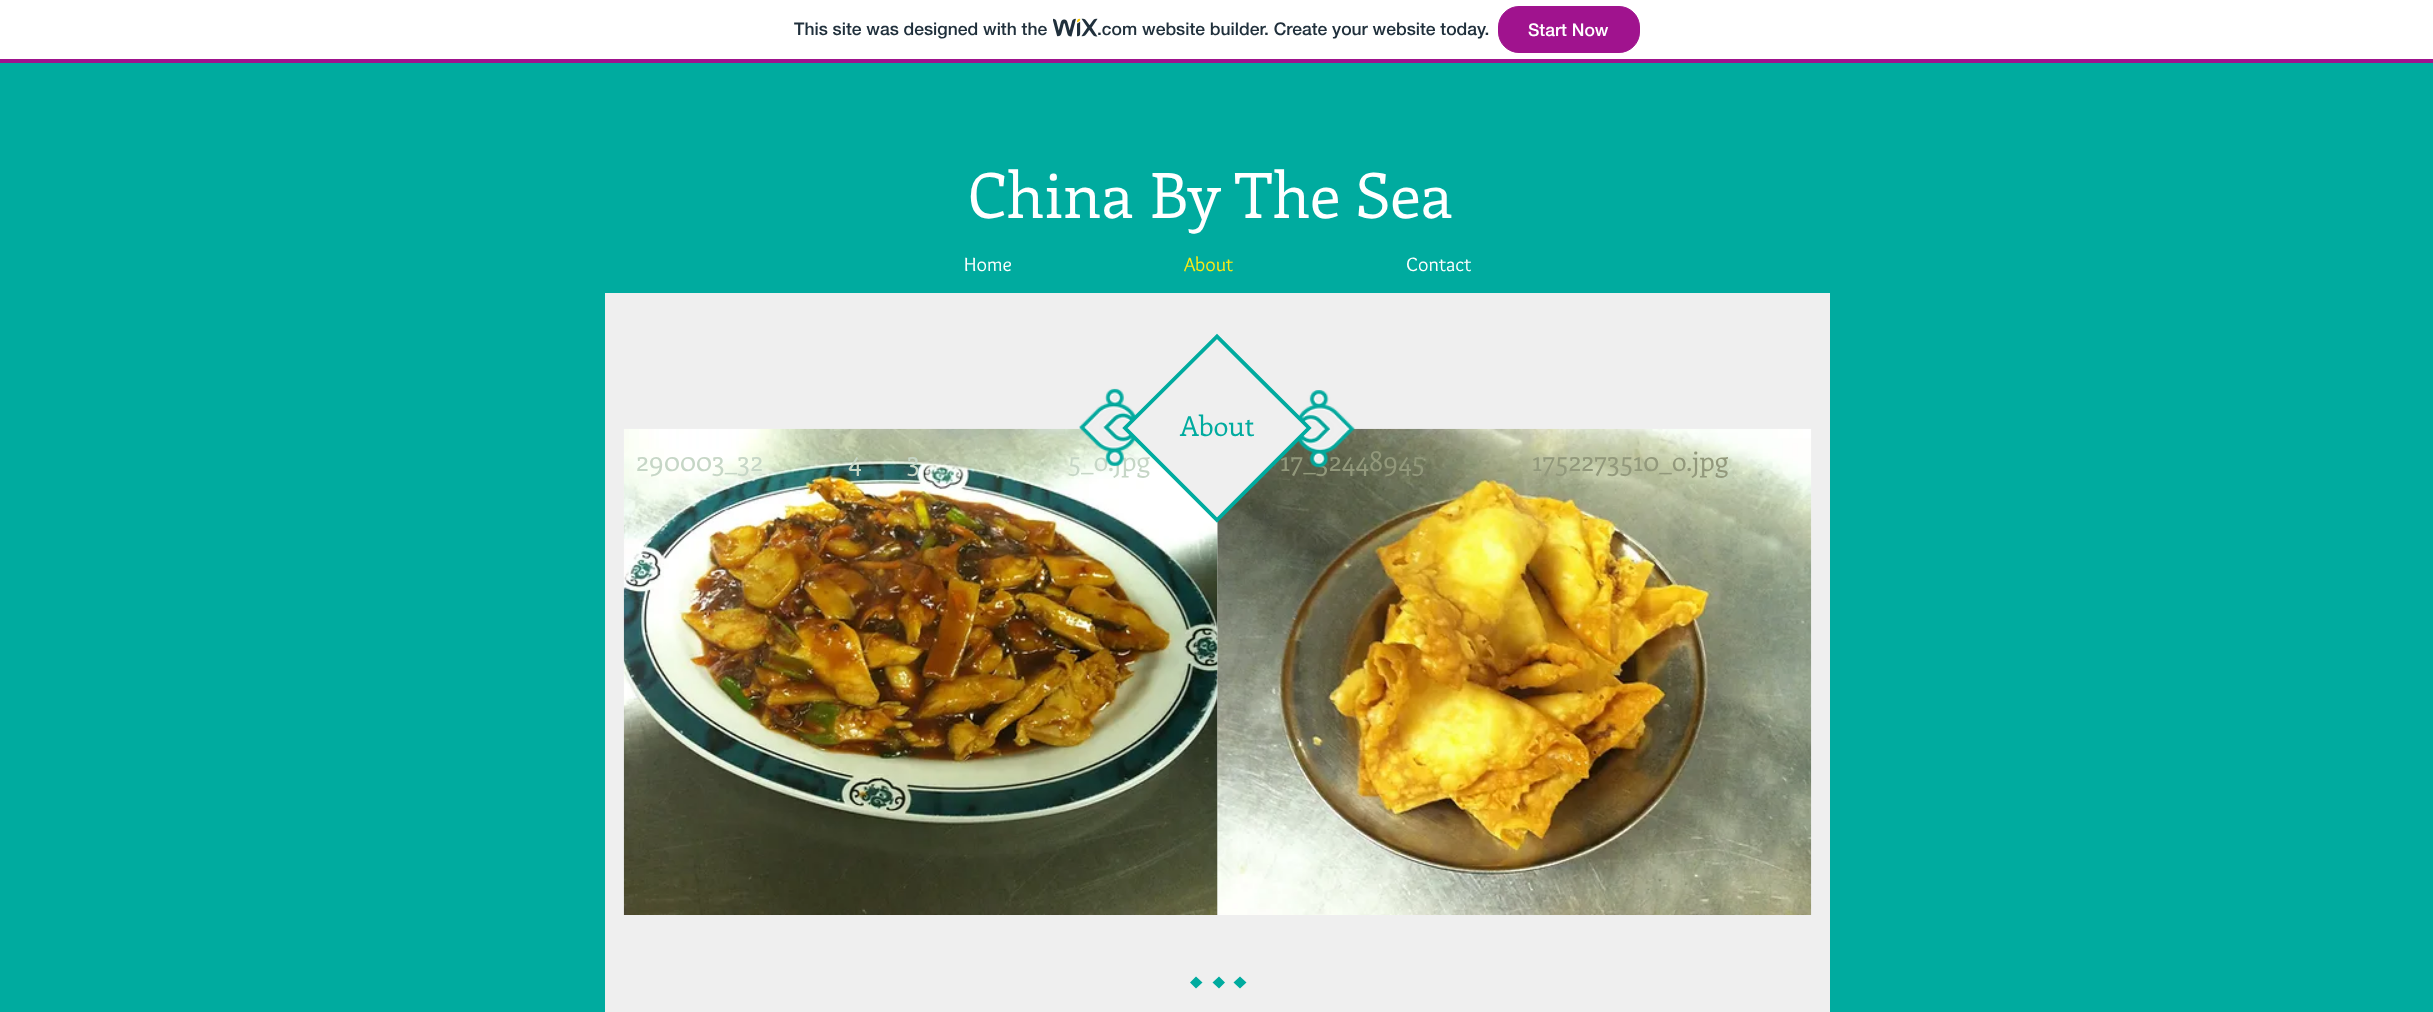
<svg xmlns="http://www.w3.org/2000/svg" width="2433" height="1012" viewBox="0 0 2433 1012">
  <style>
    .t1 { font: 500 17.5px 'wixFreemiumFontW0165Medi'; fill: #20303c; }
    .t2 { font: 500 17.5px 'wixFreemiumFontW0165Medi'; fill: #fff; }
    .t3 { font: 62.5px Enriqueta; fill: #fff; }
    .t4 { font: 20px Overlock; fill: #fff; }
    .t5 { font: 20px Overlock; fill: #ffea13; }
    .t6 { font: 27.5px Enriqueta; fill: #c6d6c6; }
    .t7 { font: 27.5px Enriqueta; fill: #92987b; }
    .t8 { font: 27.5px Enriqueta; fill: #00ab9f; }
  </style>
  <rect width="100%" height="100%" fill="#fff"/>
  <rect x="0" y="59" width="2433" height="4" fill="#a0138e"/>
  <text x="794" y="35" class="t1">This site was designed with the</text>
  <image x="1053" y="18" width="45" height="19" href="images/1.png"/>
  <text x="1097" y="35" class="t1">.com website builder. Create your website today.</text>
  <rect x="1498.5" y="6.5" width="141" height="46" rx="20.5" fill="#a0138e" stroke="#a0138e"/>
  <text x="1528" y="36" class="t2">Start Now</text>
  <rect x="0" y="63" width="2433" height="949" fill="#00ab9f"/>
  <text x="968" y="218" class="t3">China By The Sea</text>
  <text x="964" y="271" class="t4">Home</text>
  <text x="1184" y="271" class="t5">About</text>
  <text x="1406" y="271" class="t4">Contact</text>
  <rect x="605" y="293" width="1225" height="719" fill="#efefef"/>
  <image x="623" y="428" width="595" height="487" href="images/4.png"/>
  <text x="1068" y="471" class="t6">5_o.jpg</text>
  <image x="1079" y="388" width="57" height="79" href="images/2.png"/>
  <image x="1217" y="428" width="595" height="487" href="images/5.png"/>
  <text x="1280" y="471" class="t7">17_32448945</text>
  <image x="1297" y="390" width="58" height="78" href="images/3.png"/>
  <path d="M1309 428L1217 520L1125 428L1217 336Z" fill="#efefef"/>
  <path d="M1309 428L1217 520L1125 428L1217 336.5Z" fill="none" stroke="#00ab9f" stroke-width="3.8"/>
  <text x="1180" y="436" class="t8">About</text>
  <text x="636" y="471" class="t6">290003_32</text>
  <text x="848" y="471" class="t6">4</text>
  <text x="907" y="471" class="t6">3</text>
  <text x="1532" y="471" class="t7">1752273510_o.jpg</text>
  <path d="M1202.5 982.5L1196 988.5L1190 982.5L1196 976.5ZM1225 982.5L1219 988.5L1212.5 982.5L1219 976.5ZM1246.5 982.5L1240 988.5L1233.5 982.5L1240 976.5Z" fill="#00ab9f"/>
</svg>
